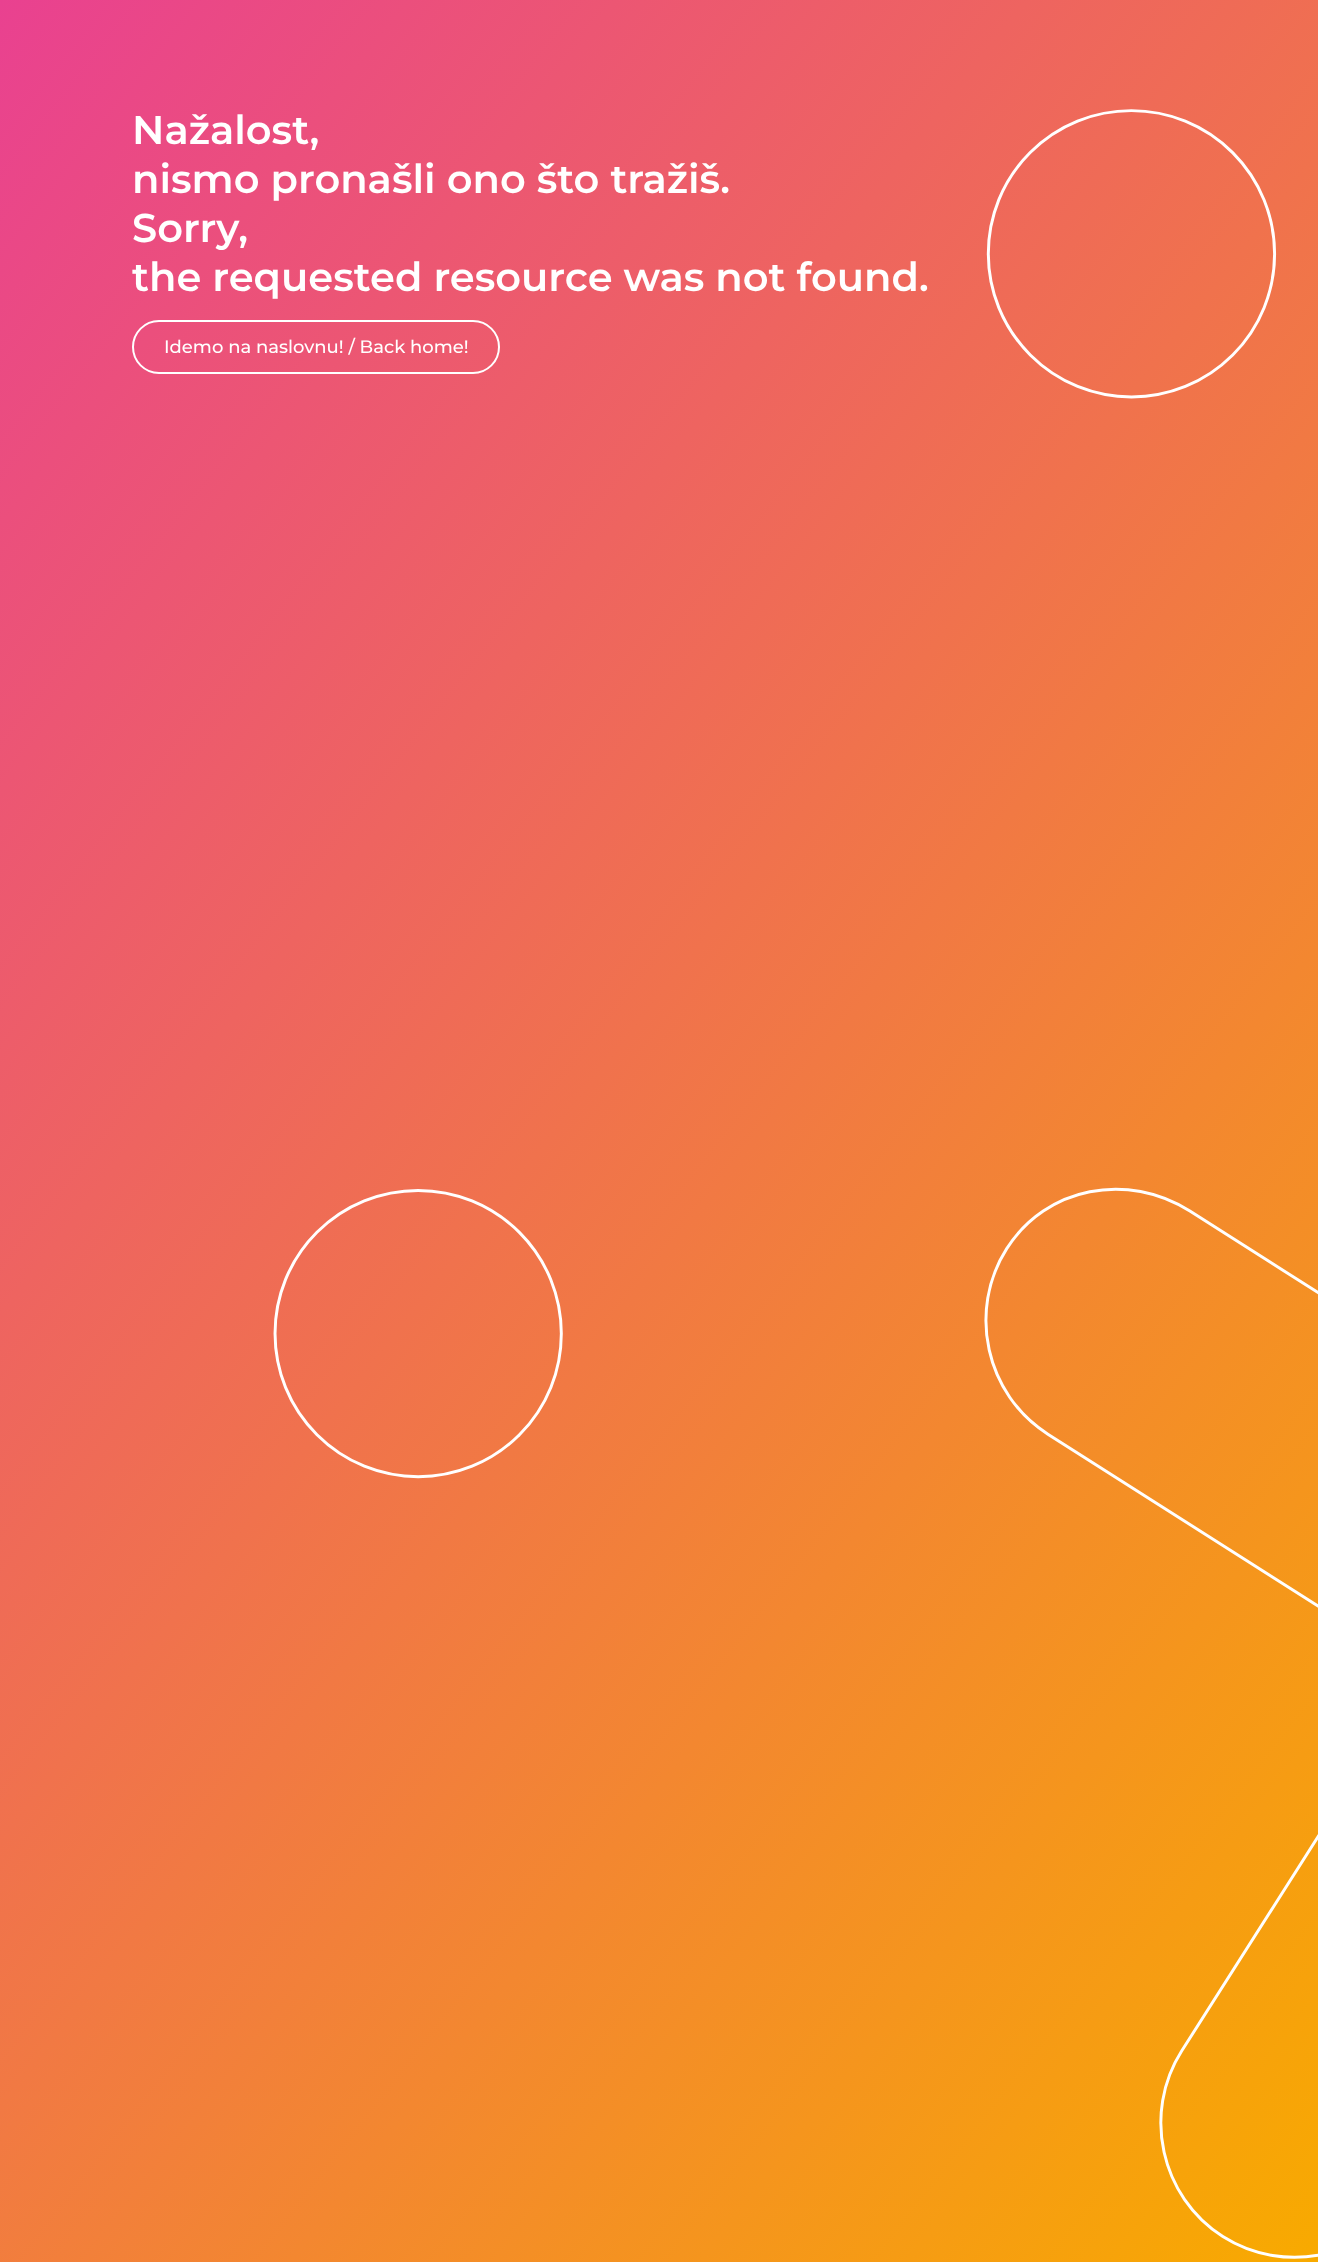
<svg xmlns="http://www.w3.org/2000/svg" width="1318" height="2262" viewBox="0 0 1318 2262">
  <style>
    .t1 { font: 600 40px Montserrat; fill: #fff; }
    .t2 { font: 500 18px Montserrat; fill: #fff; }
  </style>
  <defs>
    <linearGradient id="g1" gradientUnits="userSpaceOnUse" x1="-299" y1="383" x2="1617" y2="1879"><stop offset="0" stop-color="#e94190"/><stop offset="1" stop-color="#f8aa00"/></linearGradient>
  </defs>
  <rect width="100%" height="100%" fill="#fff"/>
  <rect x="0" y="0" width="1318" height="2262" fill="url(#g1)"/>
  <image x="273" y="109" width="1045" height="2150" href="images/1.png"/>
  <text x="132" y="144" class="t1">Nažalost,</text>
  <text x="132" y="193" class="t1">nismo pronašli ono što tražiš.</text>
  <text x="132" y="242" class="t1">Sorry,</text>
  <text x="132" y="291" class="t1">the requested resource was not found.</text>
  <rect x="133" y="321" width="366" height="52" rx="26" fill="none" stroke="#fff" stroke-width="2"/>
  <text x="164" y="353" class="t2">Idemo na naslovnu! / Back home!</text>
</svg>
